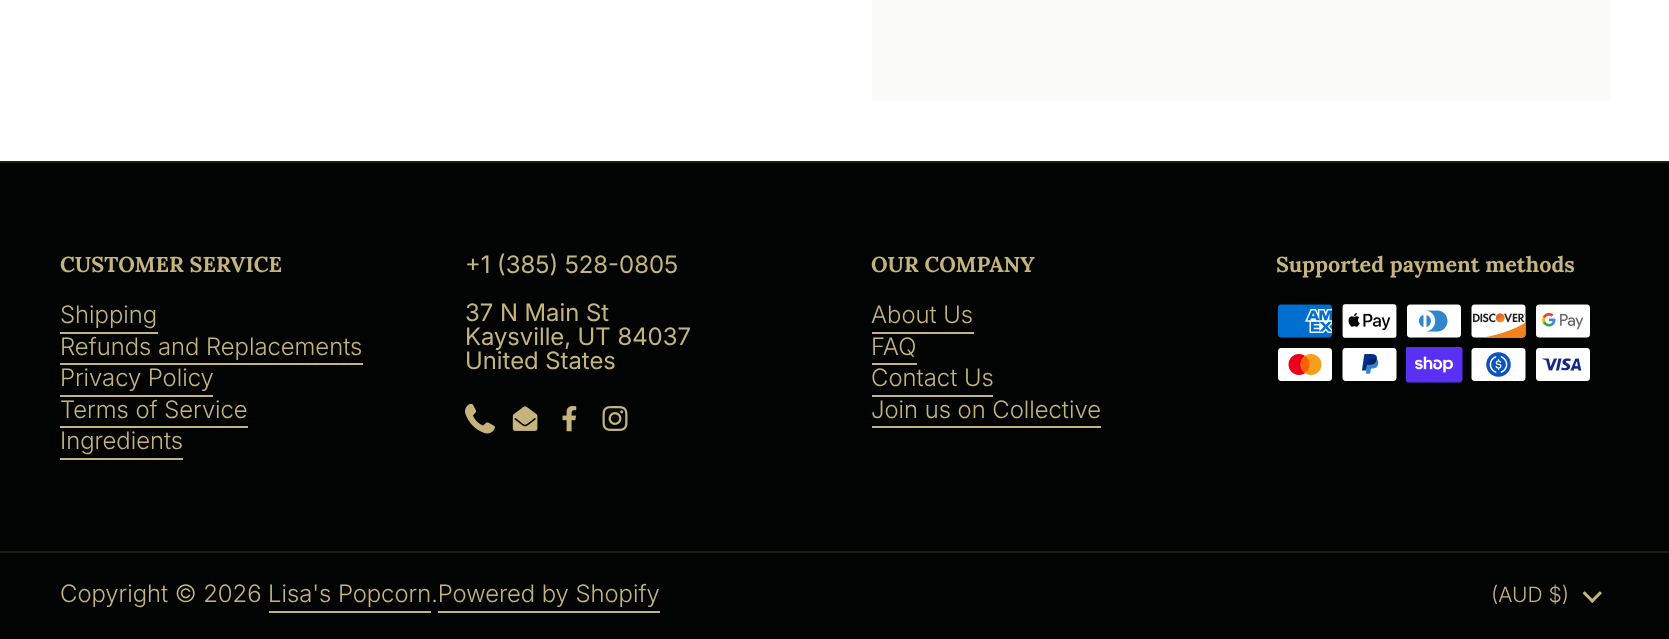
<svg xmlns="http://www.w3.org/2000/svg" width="1669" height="639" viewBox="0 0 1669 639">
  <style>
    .t1 { font: bold 21.6px Lora; fill: #c5b47c; }
    .t2 { font: 300 24px Inter; fill: #c5b47c; }
    .t3 { font: 24px Inter; fill: #c5b47c; }
    .t4 { font: 300 21px 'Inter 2'; fill: #c5b47c; }
  </style>
  <rect width="100%" height="100%" fill="#fff"/>
  <rect x="872" y="0" width="738" height="101" fill="#fafaf9"/>
  <rect x="0" y="163" width="1669" height="476" fill="#020303"/>
  <rect x="0" y="161" width="1669" height="2" fill="#1f1e15"/>
  <text x="60" y="272" class="t1">CUSTOMER SERVICE</text>
  <text x="60" y="323" class="t2">Shipping</text>
  <rect x="60" y="332" width="98" height="2" fill="#c5b47c"/>
  <text x="60" y="355" class="t2">Refunds and Replacements</text>
  <rect x="60" y="363" width="303" height="2" fill="#c5b47c"/>
  <text x="60" y="386" class="t2">Privacy Policy</text>
  <rect x="60" y="395" width="153" height="2" fill="#c5b47c"/>
  <text x="60" y="418" class="t2">Terms of Service</text>
  <rect x="60" y="426" width="188" height="2" fill="#c5b47c"/>
  <text x="60" y="449" class="t2">Ingredients</text>
  <rect x="60" y="458" width="123" height="2" fill="#c5b47c"/>
  <text x="465" y="273" class="t3">+1 (385) 528-0805</text>
  <text x="465" y="321" class="t3">37 N Main St</text>
  <text x="465" y="345" class="t3">Kaysville, UT 84037</text>
  <text x="465" y="369" class="t3">United States</text>
  <image x="465" y="404" width="30" height="30" href="images/1.png"/>
  <image x="512" y="406" width="26" height="25" href="images/2.png"/>
  <image x="562" y="406" width="15" height="26" href="images/3.png"/>
  <image x="602" y="406" width="26" height="25" href="images/4.png"/>
  <text x="871" y="272" class="t1">OUR COMPANY</text>
  <text x="871" y="323" class="t2">About Us</text>
  <rect x="872" y="332" width="102" height="2" fill="#c5b47c"/>
  <text x="871" y="355" class="t2">FAQ</text>
  <rect x="872" y="363" width="45" height="2" fill="#c5b47c"/>
  <text x="871" y="386" class="t2">Contact Us</text>
  <rect x="872" y="395" width="121" height="2" fill="#c5b47c"/>
  <text x="871" y="418" class="t2">Join us on Collective</text>
  <rect x="872" y="426" width="229" height="2" fill="#c5b47c"/>
  <text x="1276" y="272" class="t1">Supported payment methods</text>
  <image x="1278" y="304" width="54" height="34" href="images/5.png"/>
  <image x="1342" y="304" width="55" height="34" href="images/6.png"/>
  <image x="1407" y="304" width="54" height="34" href="images/7.png"/>
  <image x="1471" y="304" width="55" height="34" href="images/8.png"/>
  <image x="1536" y="304" width="54" height="34" href="images/9.png"/>
  <image x="1278" y="348" width="54" height="33" href="images/10.png"/>
  <image x="1342" y="348" width="55" height="33" href="images/11.png"/>
  <image x="1406" y="347" width="57" height="36" href="images/12.png"/>
  <image x="1471" y="348" width="55" height="33" href="images/13.png"/>
  <image x="1536" y="348" width="54" height="33" href="images/14.png"/>
  <rect x="0" y="551" width="1669" height="2" fill="#1f1e15"/>
  <text x="60" y="602" class="t2">Copyright © 2026 Lisa's Popcorn.Powered by Shopify</text>
  <rect x="269" y="611" width="162" height="2" fill="#c5b47c"/>
  <rect x="438" y="611" width="222" height="2" fill="#c5b47c"/>
  <text x="1491" y="602" class="t4">(AUD $)</text>
  <image x="1583" y="591" width="19" height="12" href="images/15.png"/>
</svg>
